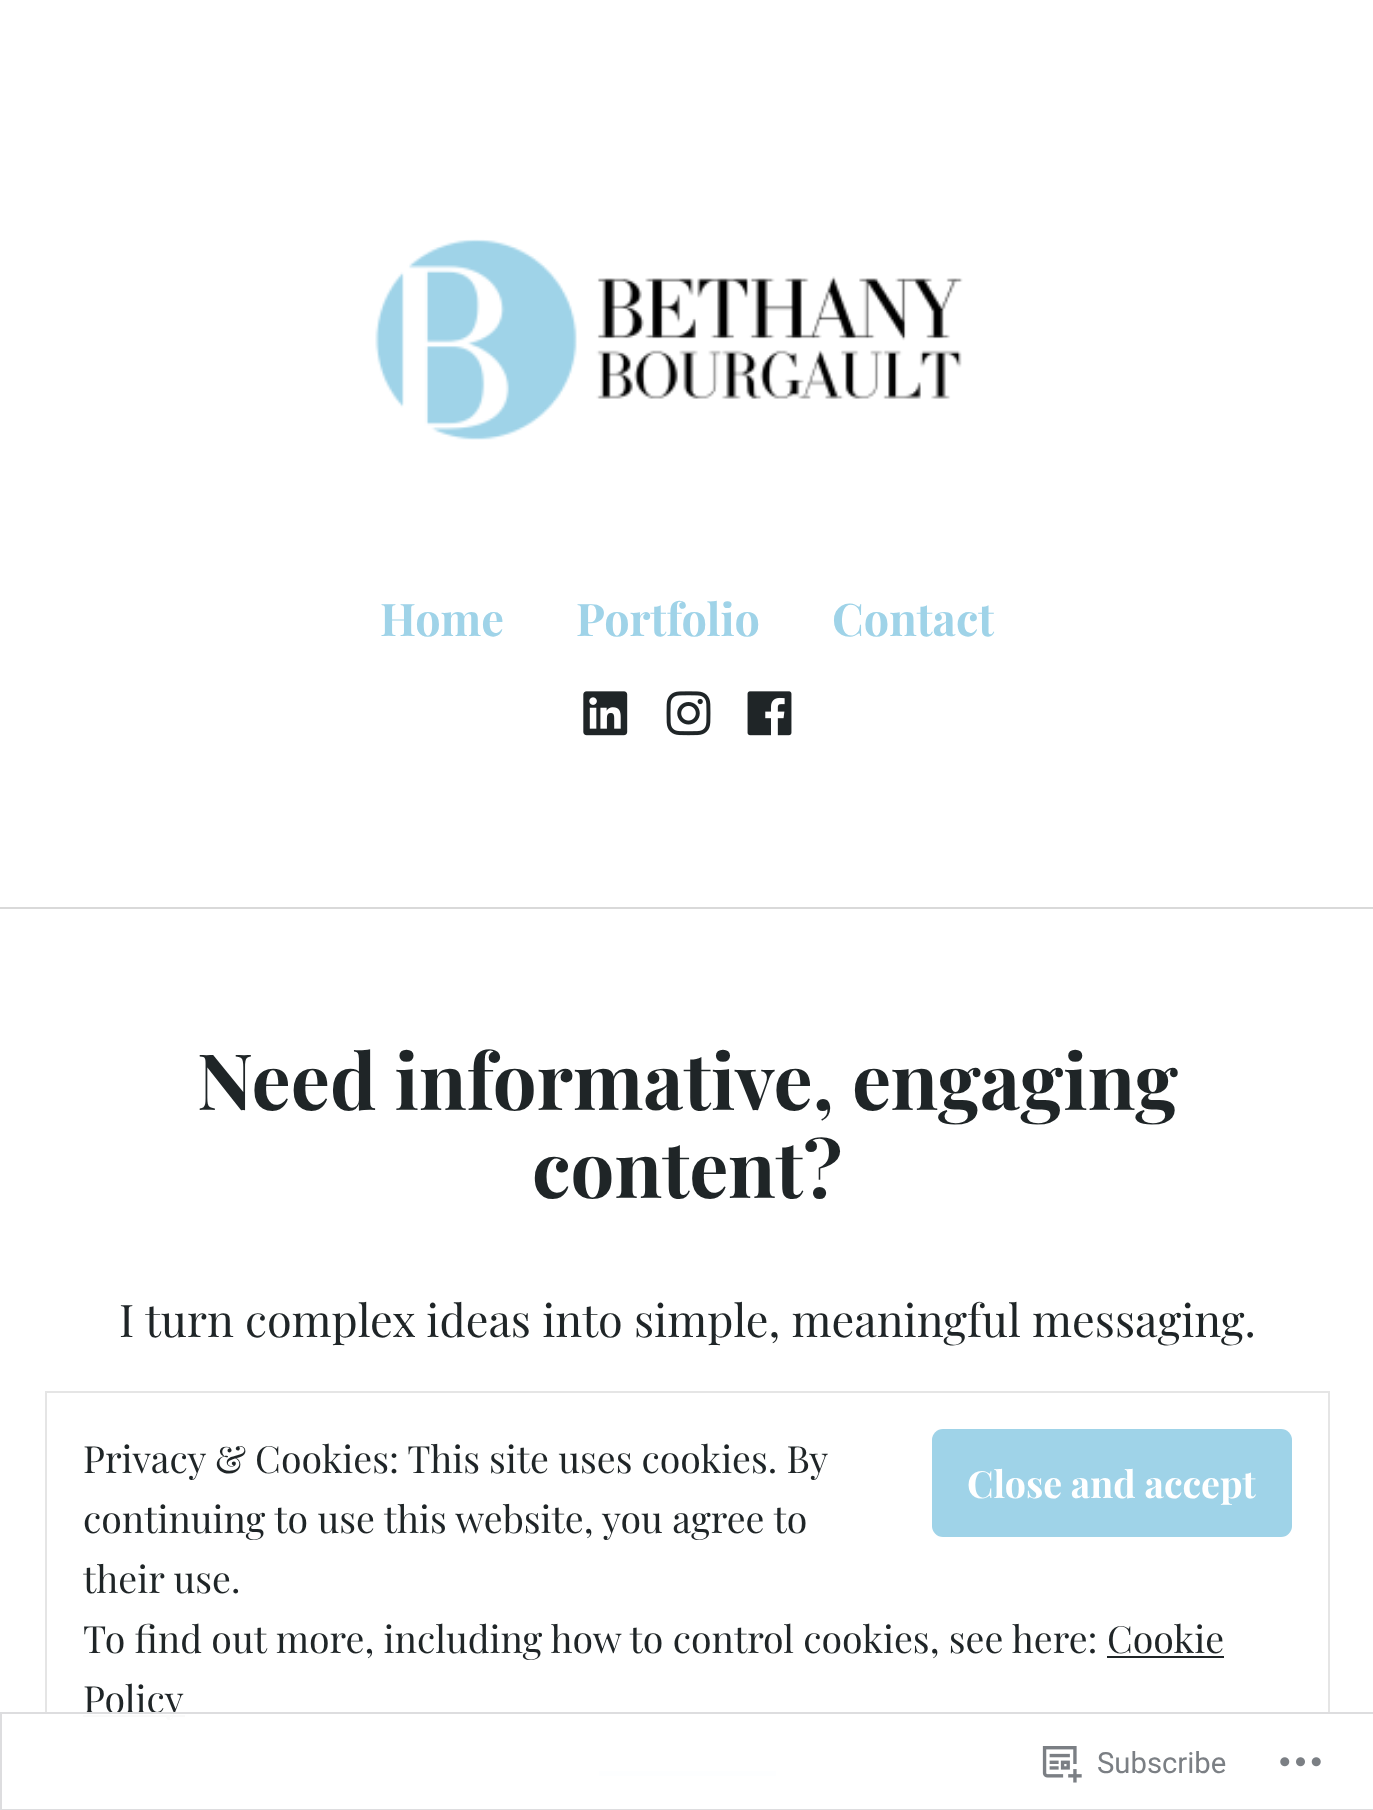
<svg xmlns="http://www.w3.org/2000/svg" width="1373" height="1810" viewBox="0 0 1373 1810">
  <style>
    .t1 { font: bold 45px Playfair Display; fill: #9fd3e8; }
    .t2 { font: bold 77.75px Playfair Display; fill: #1f2527; }
    .t3 { font: 45px Playfair Display; fill: #1f2527; }
    .t4 { font: 37.5px Playfair Display; fill: #1f2527; }
    .t5 { font: bold 37.5px Playfair Display; fill: #fff; }
    .t6 { font: 29.25px Roboto; fill: #7b7f84; }
  </style>
  <rect width="100%" height="100%" fill="#fff"/>
  <image x="375" y="239" width="588" height="201" href="images/1.png"/>
  <text x="380" y="636" class="t1">Home</text>
  <text x="576" y="636" class="t1">Portfolio</text>
  <text x="832" y="636" class="t1">Contact</text>
  <image x="583" y="691" width="45" height="45" href="images/2.png"/>
  <image x="666" y="691" width="45" height="45" href="images/3.png"/>
  <image x="747" y="691" width="45" height="45" href="images/4.png"/>
  <rect x="0" y="907" width="1373" height="2" fill="#d9d9d9"/>
  <text x="197" y="1110" class="t2">Need informative, engaging</text>
  <text x="532" y="1198" class="t2">content?</text>
  <text x="119" y="1337" class="t3">I turn complex ideas into simple, meaningful messaging.</text>
  <rect x="599" y="1771" width="177" height="5" fill="#9fd3e8"/>
  <rect x="46" y="1392" width="1283" height="373" fill="none" stroke="#e5e5e5" stroke-width="2"/>
  <text x="83" y="1473" word-spacing="-0.25" class="t4">Privacy &amp; Cookies: This site uses cookies. By</text>
  <rect x="932" y="1429" width="360" height="108" rx="11" fill="#9fd3e8"/>
  <text x="967" y="1498" class="t5">Close and accept</text>
  <text x="83" y="1533" class="t4">continuing to use this website, you agree to</text>
  <text x="83" y="1593" class="t4">their use.</text>
  <text x="83" y="1653" class="t4">To find out more, including how to control cookies, see here:</text>
  <text x="1107" y="1653" class="t4">Cookie</text>
  <rect x="1107" y="1656" width="117" height="2" fill="#1f2527"/>
  <rect x="83" y="1715" width="102" height="2" fill="#1f2527"/>
  <text x="83" y="1713" class="t4">Policy</text>
  <rect x="45" y="1712" width="1285" height="64" fill="#fffffffa"/>
  <rect x="1" y="1713" width="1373" height="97" fill="none" stroke="#dcdcdefa" stroke-width="2"/>
  <image x="1042" y="1746" width="40" height="37" href="images/5.png"/>
  <text x="1097" y="1773" class="t6">Subscribe</text>
  <image x="1280" y="1757" width="41" height="10" href="images/6.png"/>
</svg>
